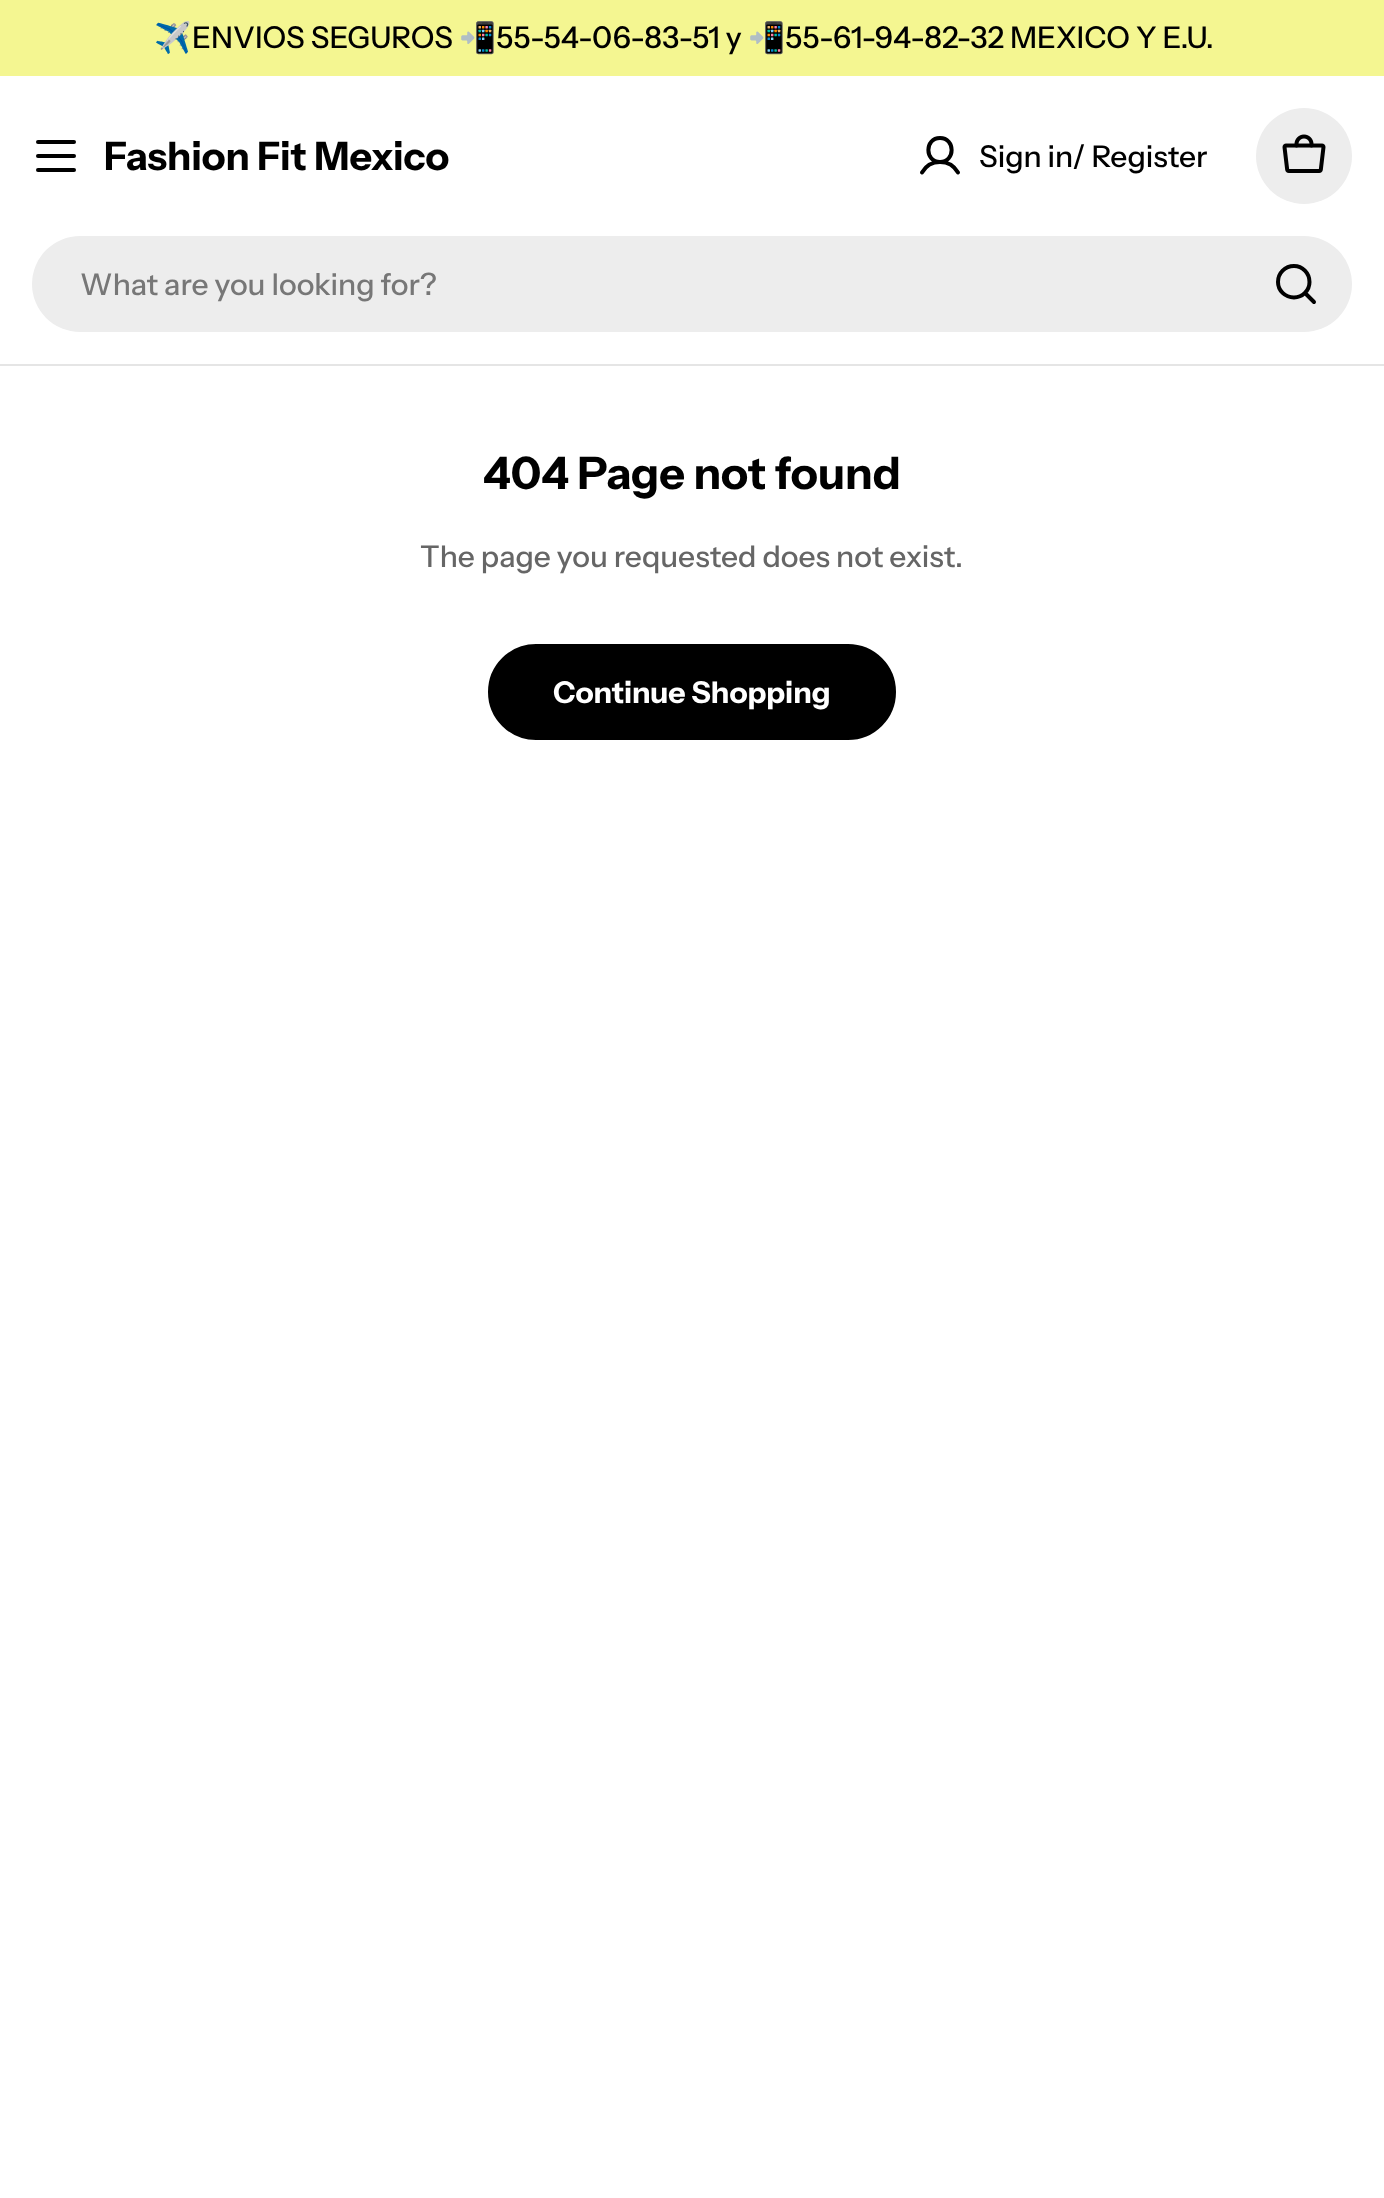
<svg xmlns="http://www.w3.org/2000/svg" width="1384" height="2198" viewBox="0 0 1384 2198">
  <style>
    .t1 { font: 30px Noto Color Emoji; fill: #000; }
    .t2 { font: 500 30px Instrument Sans; fill: #000; }
    .t3 { font: bold 39.25px Instrument Sans; fill: #000; }
    .t4 { font: 500 30px Instrument Sans; fill: #777; }
    .t5 { font: bold 44.75px Instrument Sans; fill: #000; }
    .t6 { font: 500 30px Instrument Sans; fill: #666; }
    .t7 { font: bold 30px Instrument Sans; fill: #fff; }
  </style>
  <rect width="100%" height="100%" fill="#fff"/>
  <rect x="0" y="0" width="1384" height="76" fill="#f4f691"/>
  <text x="154" y="48" class="t1">✈️</text>
  <text x="192" y="48" class="t2">ENVIOS SEGUROS</text>
  <text x="459" y="48" class="t1">📲</text>
  <text x="496" y="48" class="t2">55-54-06-83-51 y</text>
  <text x="748" y="48" class="t1">📲</text>
  <text x="785" y="48" class="t2">55-61-94-82-32 MEXICO Y E.U.</text>
  <rect x="36" y="154" width="40" height="4" rx="2" fill="#000"/>
  <rect x="36" y="140" width="40" height="4" rx="2" fill="#000"/>
  <rect x="36" y="168" width="40" height="4" rx="2" fill="#000"/>
  <text x="104" y="170" class="t3">Fashion Fit Mexico</text>
  <path d="M940 162C955.5 162 955.5 138 940 138C924.5 138 924.5 162 940 162ZM922 172.5C930 158.5 950 158.5 958 172.5" fill="none" stroke="#000" stroke-width="4" stroke-linecap="round" stroke-linejoin="round"/>
  <text x="979" y="167" class="t2">Sign in/ Register</text>
  <circle cx="1304" cy="156" r="48" fill="#ededed"/>
  <image x="1282" y="134" width="44" height="39" href="images/1.png"/>
  <rect x="32" y="236" width="1320" height="96" rx="48" fill="#ededed"/>
  <text x="80" y="295" class="t4">What are you looking for?</text>
  <path d="M1294 297.5C1302.5 297.5 1309.5 290.5 1309.5 282C1309.5 273 1302.5 266 1294 266C1285 266 1278 273 1278 282C1278 290.5 1285 297.5 1294 297.5ZM1305 293L1314 302" fill="none" stroke="#000" stroke-width="4" stroke-linecap="round" stroke-linejoin="round"/>
  <rect x="0" y="364" width="1384" height="2" fill="#e5e5e5"/>
  <text x="483" y="489" class="t5">404 Page not found</text>
  <text x="420" y="567" class="t6">The page you requested does not exist.</text>
  <rect x="489" y="645" width="406" height="94" rx="47" fill="#000" stroke="#000" stroke-width="2"/>
  <text x="553" y="703" class="t7">Continue Shopping</text>
</svg>
